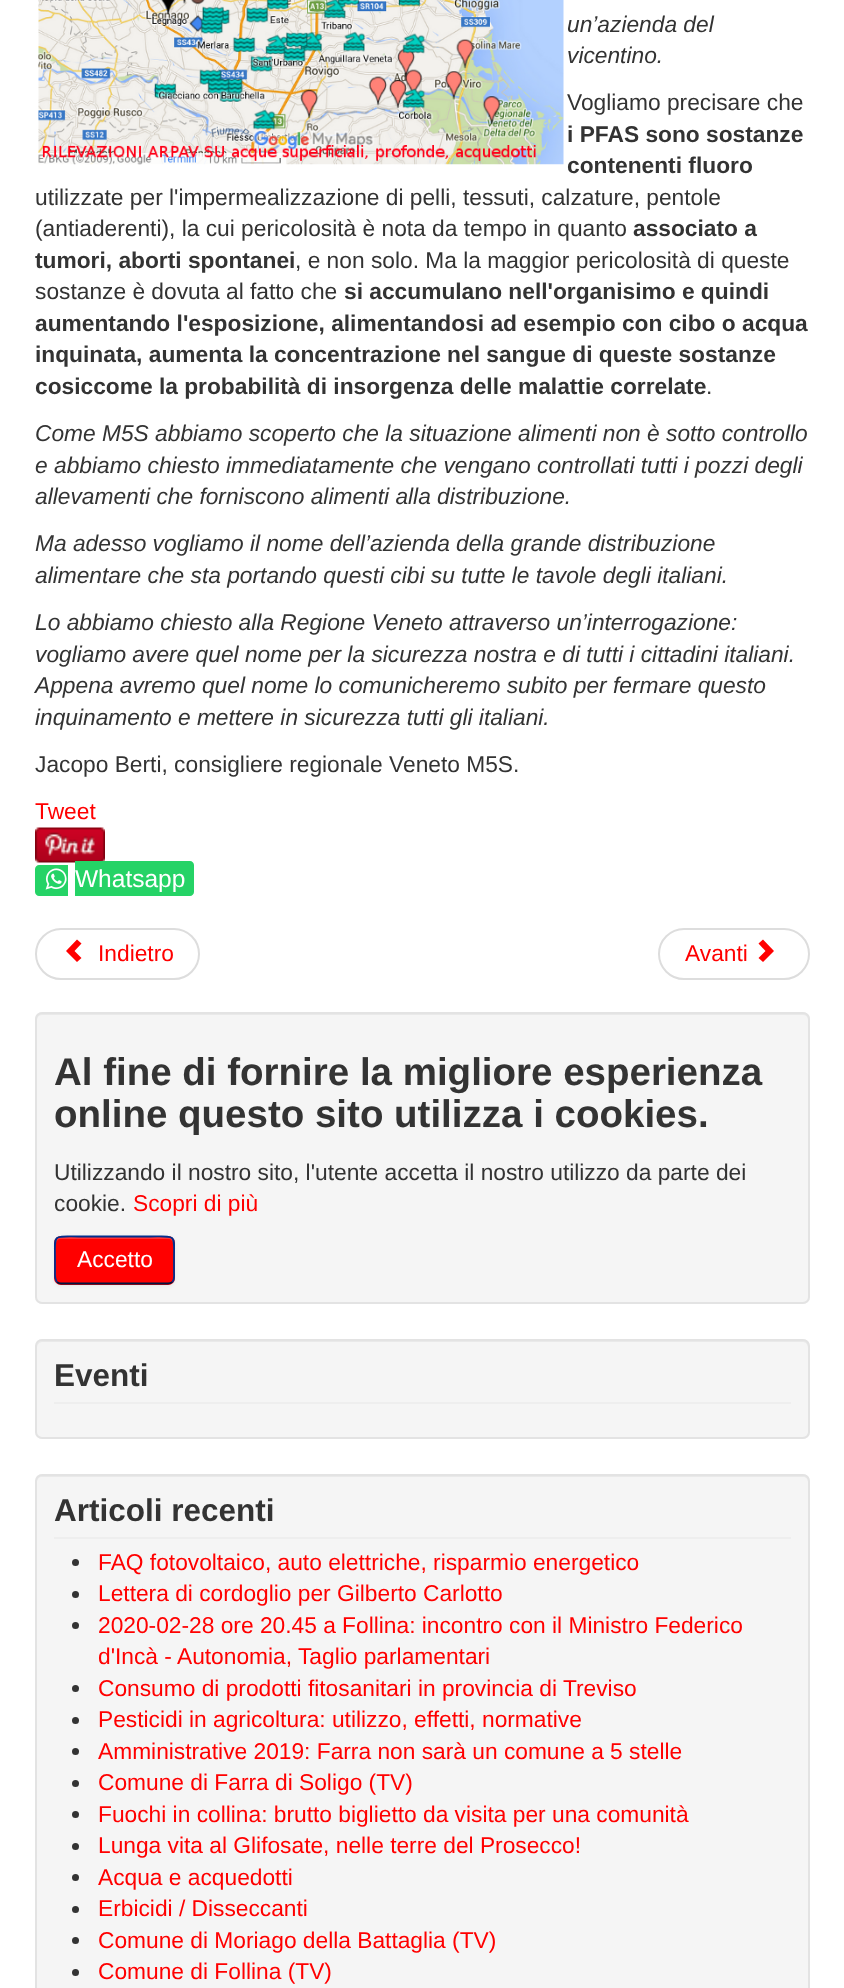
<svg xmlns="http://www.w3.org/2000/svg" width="844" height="1988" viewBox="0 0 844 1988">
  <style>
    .t1 { font: italic 22.75px Liberation Sans; fill: #333; }
    .t2 { font: 22.75px Liberation Sans; fill: #333; }
    .t3 { font: bold 22.75px Liberation Sans; fill: #333; }
    .t4 { font: 22.75px Liberation Sans; fill: #f00; }
    .t5 { font: 24.5px Liberation Sans; fill: #fff; }
    .t6 { font: bold 38.5px Liberation Sans; fill: #333; }
    .t7 { font: 22.75px Liberation Sans; fill: #fff; }
    .t8 { font: bold 31.5px Liberation Sans; fill: #333; }
  </style>
  <rect width="100%" height="100%" fill="#fff"/>
  <image x="38" y="0" width="526" height="165" href="images/1.png"/>
  <text x="567" y="32" class="t1">un’azienda del</text>
  <text x="567" y="63" class="t1">vicentino.</text>
  <text x="567" y="110" class="t2">Vogliamo precisare che</text>
  <text x="567" y="142" class="t3">i PFAS sono sostanze</text>
  <text x="567" y="173" class="t3">contenenti fluoro</text>
  <text x="35" y="205" class="t2">utilizzate per l'impermealizzazione di pelli, tessuti, calzature, pentole</text>
  <text x="35" y="236" class="t2">(antiaderenti), la cui pericolosità è nota da tempo in quanto</text>
  <text x="633" y="236" class="t3">associato a</text>
  <text x="35" y="268" class="t3">tumori, aborti spontanei</text>
  <text x="295" y="268" class="t2">, e non solo. Ma la maggior pericolosità di queste</text>
  <text x="35" y="299" class="t2">sostanze è dovuta al fatto che</text>
  <text x="344" y="299" class="t3">si accumulano nell'organisimo e quindi</text>
  <text x="35" y="331" class="t3">aumentando l'esposizione, alimentandosi ad esempio con cibo o acqua</text>
  <text x="35" y="362" class="t3">inquinata, aumenta la concentrazione nel sangue di queste sostanze</text>
  <text x="35" y="394" class="t3">cosiccome la probabilità di insorgenza delle malattie correlate</text>
  <text x="706" y="394" class="t2">.</text>
  <text x="35" y="441" class="t1">Come M5S abbiamo scoperto che la situazione alimenti non è sotto controllo</text>
  <text x="35" y="473" class="t1">e abbiamo chiesto immediatamente che vengano controllati tutti i pozzi degli</text>
  <text x="35" y="504" class="t1">allevamenti che forniscono alimenti alla distribuzione.</text>
  <text x="35" y="551" class="t1">Ma adesso vogliamo il nome dell’azienda della grande distribuzione</text>
  <text x="35" y="583" class="t1">alimentare che sta portando questi cibi su tutte le tavole degli italiani.</text>
  <text x="35" y="630" class="t1">Lo abbiamo chiesto alla Regione Veneto attraverso un’interrogazione:</text>
  <text x="35" y="662" class="t1">vogliamo avere quel nome per la sicurezza nostra e di tutti i cittadini italiani.</text>
  <text x="35" y="693" class="t1">Appena avremo quel nome lo comunicheremo subito per fermare questo</text>
  <text x="35" y="725" class="t1">inquinamento e mettere in sicurezza tutti gli italiani.</text>
  <text x="35" y="772" class="t2">Jacopo Berti, consigliere regionale Veneto M5S.</text>
  <text x="35" y="819" class="t4">Tweet</text>
  <image x="35" y="827" width="70" height="36" href="images/2.png"/>
  <path d="M39 865H68V896H39C37 896 35 894 35 892V869C35 867 37 865 39 865Z" fill="#25d366"/>
  <image x="45" y="868" width="22" height="22" href="images/3.png"/>
  <path d="M75 861H190C192 861 194 863 194 865V892C194 894 192 896 190 896H75Z" fill="#25d366"/>
  <text x="75" y="887" class="t5">Whatsapp</text>
  <rect x="36" y="929" width="163" height="50" rx="25" fill="none" stroke="#ddd" stroke-width="2"/>
  <path d="M77 962L66 951L77 939.5L81.5 943.5L74.5 951L81.5 958Z" fill="#f00"/>
  <text x="98" y="961" class="t4">Indietro</text>
  <rect x="659" y="929" width="150" height="50" rx="25" fill="none" stroke="#ddd" stroke-width="2"/>
  <text x="685" y="961" class="t4">Avanti</text>
  <path d="M763 939.5L774 951L763 962L758.5 958L765.5 951L758.5 943.5Z" fill="#f00"/>
  <rect x="35" y="1012" width="775" height="292" rx="7" fill="#f5f5f5"/>
  <path d="M42 1015H803C806 1015 808 1017 808 1020V1298V1301C808 1300 809 1298 809 1297V1018C809 1015 807 1013 804 1013H42C39 1013 37 1015 37 1018V1020C37 1017 39 1015 42 1015Z" fill="#e9e9e9"/>
  <rect x="36" y="1013" width="773" height="290" rx="6" fill="none" stroke="#e3e3e3" stroke-width="2"/>
  <text x="54" y="1085" class="t6">Al fine di fornire la migliore esperienza</text>
  <text x="54" y="1127" class="t6">online questo sito utilizza i cookies.</text>
  <text x="54" y="1180" class="t2">Utilizzando il nostro sito, l'utente accetta il nostro utilizzo da parte dei</text>
  <text x="54" y="1211" class="t2">cookie.</text>
  <text x="133" y="1211" class="t4">Scopri di più</text>
  <rect x="54" y="1237" width="121" height="49" rx="7" fill="#0000000d" filter="blur(2px)"/>
  <rect x="54" y="1236" width="121" height="49" rx="7" fill="#f00"/>
  <path d="M61 1239H168C171 1239 173 1241 173 1244V1242C173 1239 171 1237 168 1237H61C58 1237 56 1239 56 1242V1244C56 1241 58 1239 61 1239Z" fill="#f33"/>
  <path d="M172.5 1282C171 1283 169.5 1283.5 168 1283.5H61C59.5 1283.5 58 1283 57 1282" fill="none" stroke="#001641" stroke-width="1.8"/>
  <path d="M57 1282C54.5 1279 55 1275 55 1271.5V1260C55 1233.5 51.5 1236.5 79 1236.5H150C177.5 1236.5 174 1233.5 174 1260V1271.5C174 1275 175 1279 172.5 1282" fill="none" stroke="#002f8d" stroke-width="1.8"/>
  <text x="77" y="1267" class="t7">Accetto</text>
  <rect x="35" y="1339" width="775" height="100" rx="7" fill="#f5f5f5"/>
  <path d="M42 1342H803C806 1342 808 1345 808 1348V1433L807 1436C808 1435 809 1433 809 1432V1346C809 1343 807 1341 804 1341H42C39 1341 37 1343 37 1346V1348C37 1345 39 1342 42 1342Z" fill="#e9e9e9"/>
  <rect x="36" y="1340" width="773" height="98" rx="6" fill="none" stroke="#e3e3e3" stroke-width="2"/>
  <rect x="54" y="1402" width="737" height="2" fill="#eee"/>
  <text x="54" y="1386" class="t8">Eventi</text>
  <rect x="35" y="1474" width="775" height="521" rx="7" fill="#f5f5f5"/>
  <path d="M42 1477H803C806 1477 808 1479 808 1482V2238V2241C808 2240 809 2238 809 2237V1480C809 1477 807 1475 804 1475H42C39 1475 37 1477 37 1480V1482C37 1479 39 1477 42 1477Z" fill="#e9e9e9"/>
  <rect x="36" y="1475" width="773" height="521" rx="6" fill="none" stroke="#e3e3e3" stroke-width="2"/>
  <rect x="54" y="1537" width="737" height="2" fill="#eee"/>
  <text x="54" y="1521" class="t8">Articoli recenti</text>
  <circle cx="75.5" cy="1562.5" r="3.5" fill="#333"/>
  <text x="98" y="1570" class="t4">FAQ fotovoltaico, auto elettriche, risparmio energetico</text>
  <circle cx="75.5" cy="1594.5" r="3.5" fill="#333"/>
  <text x="98" y="1601" class="t4">Lettera di cordoglio per Gilberto Carlotto</text>
  <circle cx="75.5" cy="1625.5" r="3.5" fill="#333"/>
  <text x="98" y="1633" class="t4">2020-02-28 ore 20.45 a Follina: incontro con il Ministro Federico</text>
  <text x="98" y="1664" class="t4">d'Incà - Autonomia, Taglio parlamentari</text>
  <circle cx="75.5" cy="1688.5" r="3.5" fill="#333"/>
  <text x="98" y="1696" class="t4">Consumo di prodotti fitosanitari in provincia di Treviso</text>
  <circle cx="75.5" cy="1720.5" r="3.5" fill="#333"/>
  <text x="98" y="1727" class="t4">Pesticidi in agricoltura: utilizzo, effetti, normative</text>
  <circle cx="75.5" cy="1751.5" r="3.5" fill="#333"/>
  <text x="98" y="1759" class="t4">Amministrative 2019: Farra non sarà un comune a 5 stelle</text>
  <circle cx="75.5" cy="1783.5" r="3.5" fill="#333"/>
  <text x="98" y="1790" class="t4">Comune di Farra di Soligo (TV)</text>
  <circle cx="75.5" cy="1814.5" r="3.5" fill="#333"/>
  <text x="98" y="1822" class="t4">Fuochi in collina: brutto biglietto da visita per una comunità</text>
  <circle cx="75.5" cy="1846.5" r="3.5" fill="#333"/>
  <text x="98" y="1853" class="t4">Lunga vita al Glifosate, nelle terre del Prosecco!</text>
  <circle cx="75.5" cy="1877.5" r="3.5" fill="#333"/>
  <text x="98" y="1885" class="t4">Acqua e acquedotti</text>
  <circle cx="75.5" cy="1909.5" r="3.5" fill="#333"/>
  <text x="98" y="1916" class="t4">Erbicidi / Disseccanti</text>
  <circle cx="75.5" cy="1940.5" r="3.5" fill="#333"/>
  <text x="98" y="1948" class="t4">Comune di Moriago della Battaglia (TV)</text>
  <circle cx="75.5" cy="1972.5" r="3.5" fill="#333"/>
  <text x="98" y="1979" class="t4">Comune di Follina (TV)</text>
</svg>
